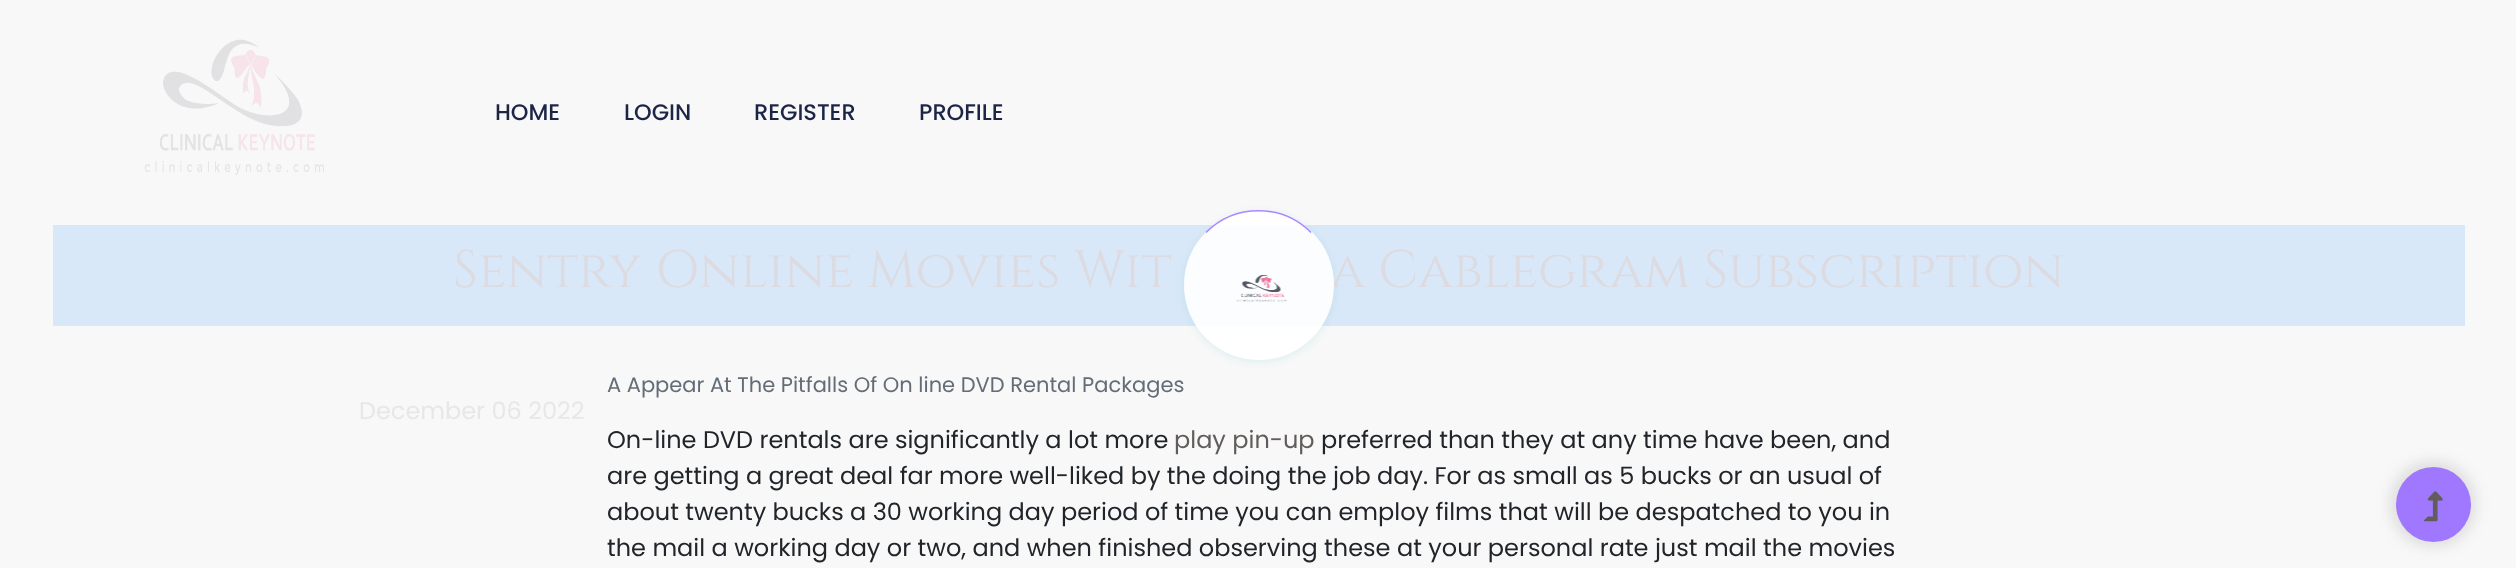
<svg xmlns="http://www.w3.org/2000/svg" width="2516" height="568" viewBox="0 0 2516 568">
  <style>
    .t1 { font: 500 22.5px Poppins; fill: #1d2547; }
    .t2 { font: 52.5px Cinzel; fill: #dcdbe1; }
    .t3 { font: 24px Poppins; fill: #e6e7e8; }
    .t4 { font: 21px Poppins; fill: #646d77; }
    .t5 { font: 24px Poppins; fill: #212529; }
    .t6 { font: 24px Poppins; fill: #635c5c; }
  </style>
  <defs>
    <clipPath id="clip1"><path d="M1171 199H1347V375H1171ZM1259 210C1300.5 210 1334 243.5 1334 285C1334 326.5 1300.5 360 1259 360C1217.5 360 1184 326.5 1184 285C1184 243.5 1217.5 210 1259 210Z" clip-rule="evenodd"/></clipPath>
  </defs>
  <rect width="100%" height="100%" fill="#f8f8f8"/>
  <image x="144" y="39" width="180" height="136" href="images/1.png"/>
  <text x="495" y="120" class="t1">HOME</text>
  <text x="624" y="120" class="t1">LOGIN</text>
  <text x="754" y="120" class="t1">REGISTER</text>
  <text x="919" y="120" class="t1">PROFILE</text>
  <rect x="53" y="225" width="2412" height="101" fill="#d9e8f8"/>
  <g clip-path="url(#clip1)">
    <rect x="1184" y="212" width="150" height="150" rx="75" fill="#23b5b921" filter="blur(4px)"/>
  </g>
  <text x="1330" y="287" class="t2">a Cablegram Subscription</text>
  <circle cx="1259" cy="285" r="75" fill="#ffffffe0"/>
  <path d="M1206 232.5C1235 203.5 1282 203.5 1311 232.5" fill="none" stroke="#9f78ffe0" stroke-width="1.5"/>
  <image x="1236" y="275" width="52" height="27" href="images/2.png"/>
  <text x="453" y="287" class="t2">Sentry Online Movies Wit</text>
  <text x="359" y="419" class="t3">December 06 2022</text>
  <text x="607" y="392" class="t4">A Appear At The Pitfalls Of On line DVD Rental Packages</text>
  <text x="607" y="448" class="t5">On-line DVD rentals are significantly a lot more</text>
  <text x="1174" y="448" class="t6">play pin-up</text>
  <text x="1321" y="448" class="t5">preferred than they at any time have been, and</text>
  <text x="607" y="484" class="t5">are getting a great deal far more well-liked by the doing the job day. For as small as 5 bucks or an usual of</text>
  <text x="607" y="520" class="t5">about twenty bucks a 30 working day period of time you can employ films that will be despatched to you in</text>
  <text x="607" y="556" class="t5">the mail a working day or two, and when finished observing these at your personal rate just mail the movies</text>
  <rect x="2391" y="462" width="84" height="84" rx="42" fill="#6c626233" filter="blur(7.5px)"/>
  <circle cx="2433.5" cy="504.5" r="37.5" fill="#9f78ff"/>
  <image x="2424" y="491" width="19" height="31" href="images/3.png"/>
</svg>
